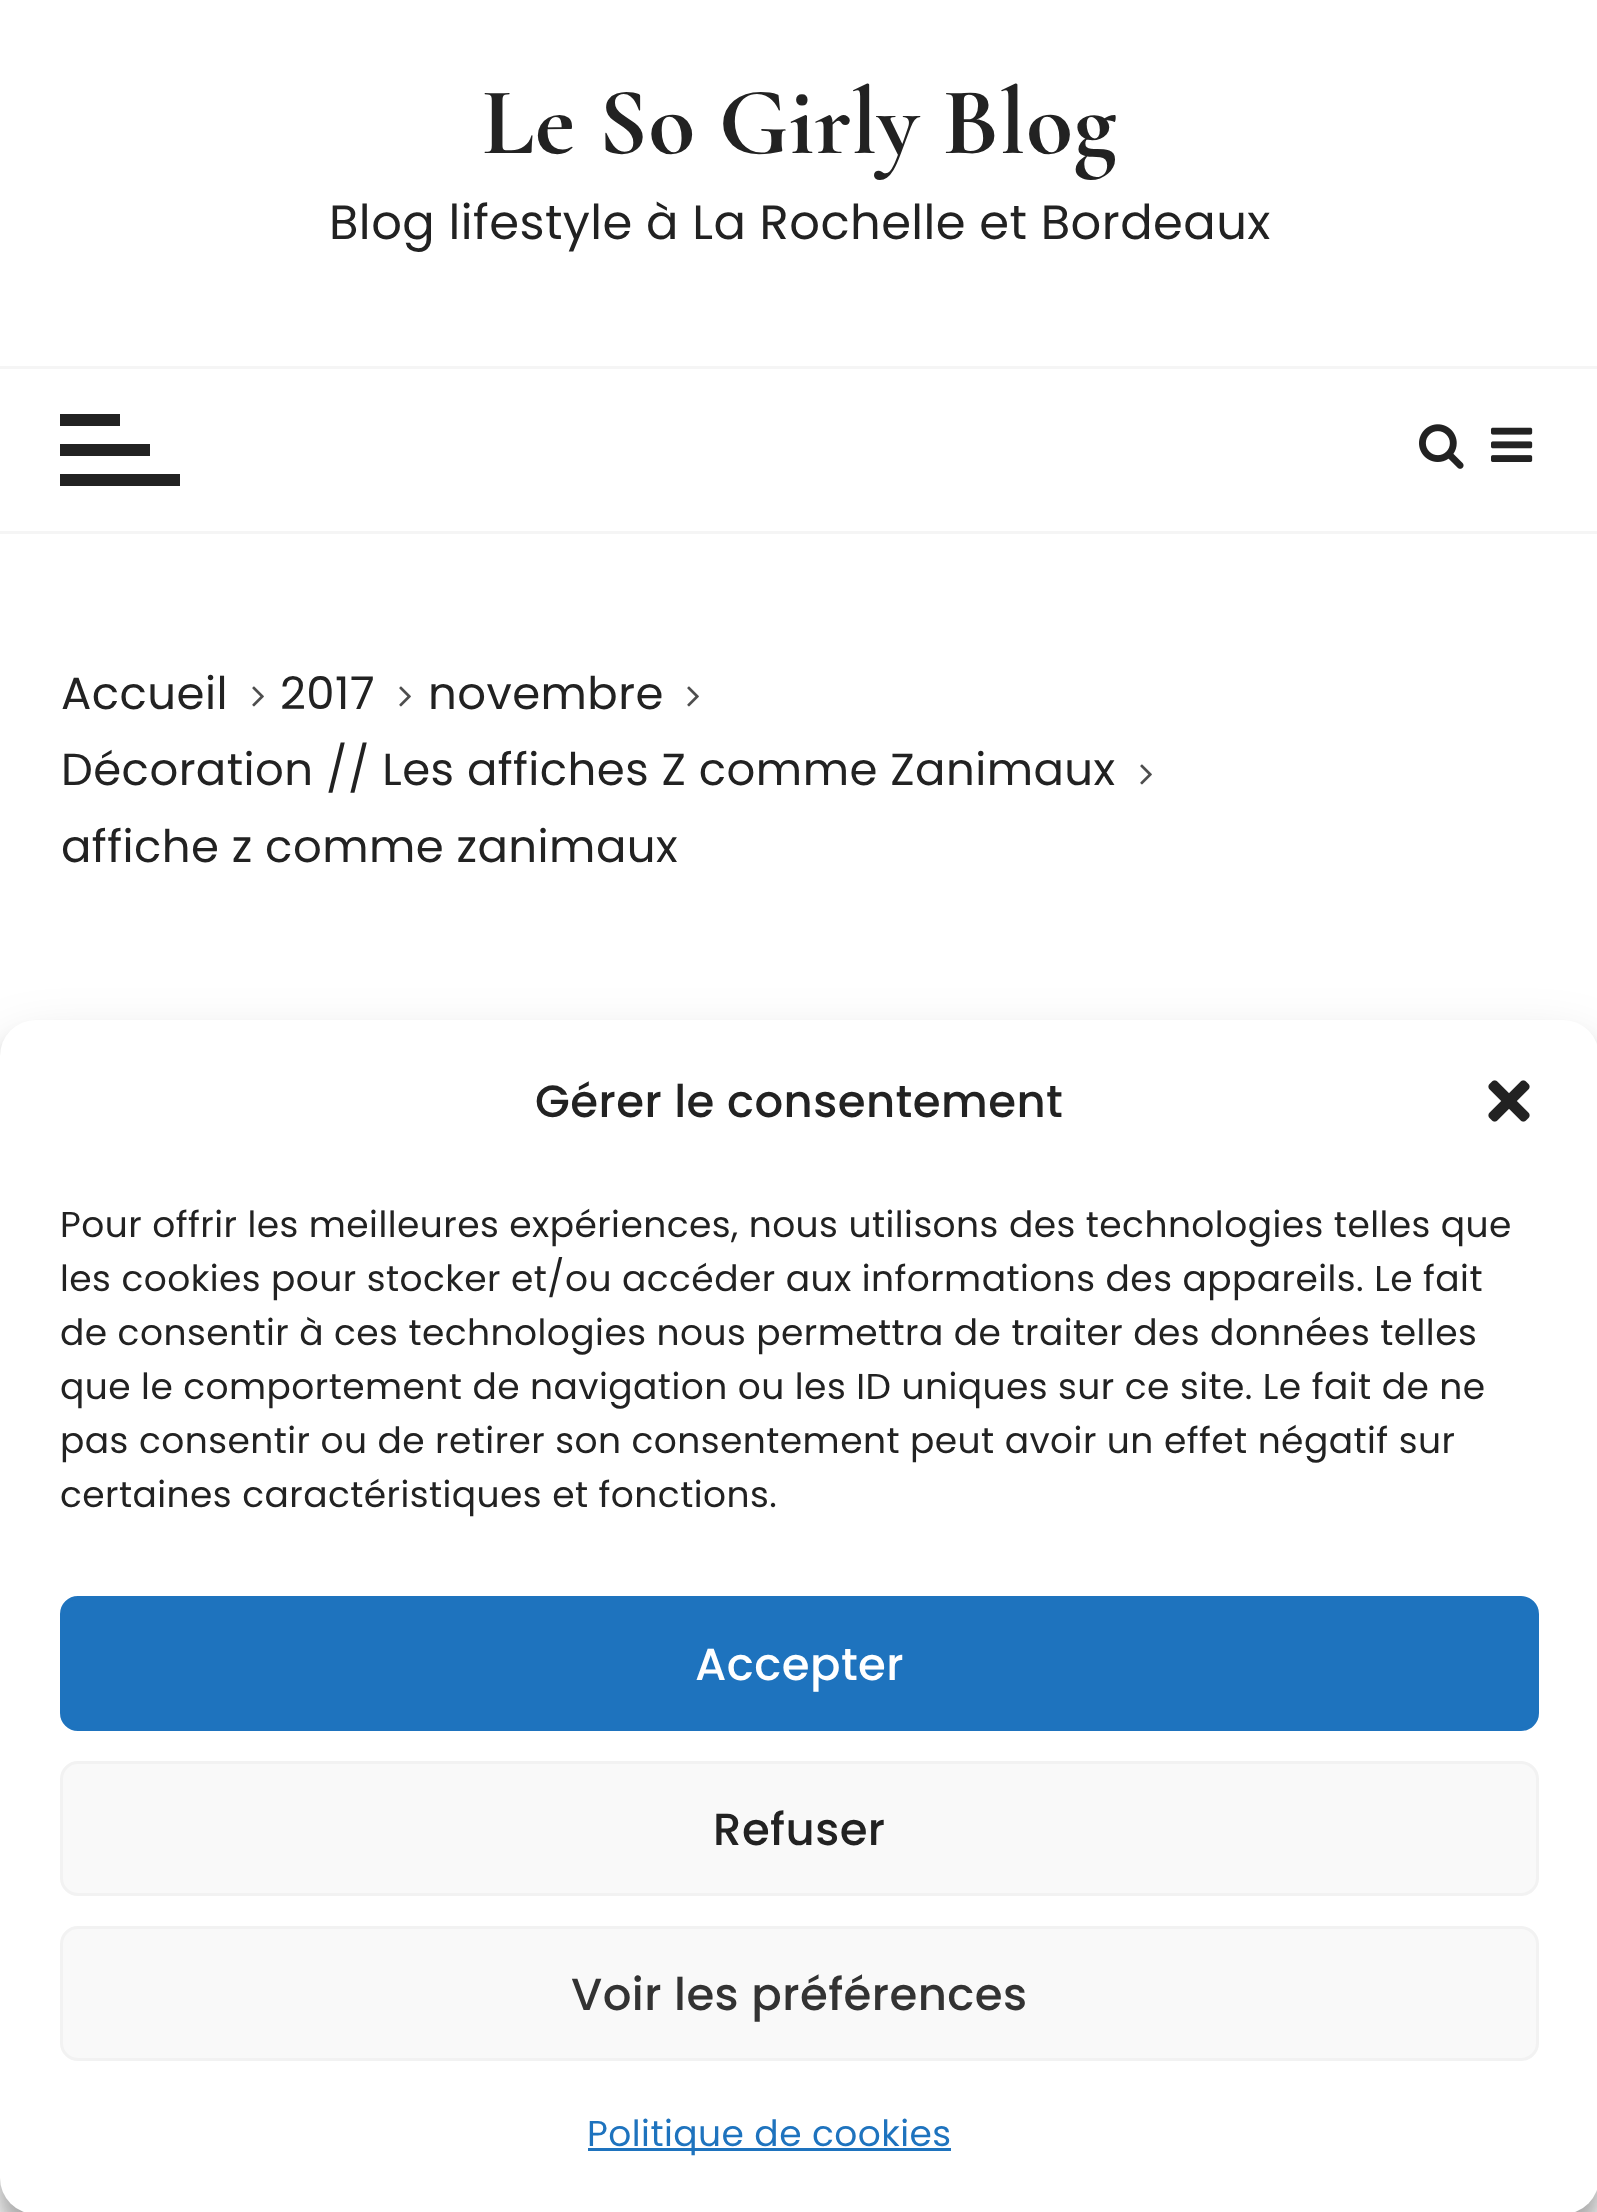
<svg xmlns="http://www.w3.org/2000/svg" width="1597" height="2212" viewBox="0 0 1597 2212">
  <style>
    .t1 { font: bold 96px Cormorant Garamond; letter-spacing: 0.45px; fill: #222; }
    .t2 { font: 48px Poppins; letter-spacing: 0.45px; fill: #222; }
    .t3 { font: 45px Poppins; letter-spacing: 0.45px; fill: #222; }
    .t4 { font: 500 45px Poppins; letter-spacing: 0.45px; fill: #222; }
    .t5 { font: 36px Poppins; letter-spacing: 0.45px; fill: #222; }
    .t6 { font: 500 45px Poppins; letter-spacing: 0.45px; fill: #fff; }
    .t7 { font: 500 45px Poppins; letter-spacing: 0.45px; fill: #333; }
    .t8 { font: 36px Poppins; letter-spacing: 0.45px; fill: #1e73be; }
  </style>
  <rect width="100%" height="100%" fill="#fff"/>
  <text x="482" y="153" class="t1">Le So Girly Blog</text>
  <text x="329" y="239" class="t2">Blog lifestyle à La Rochelle et Bordeaux</text>
  <rect x="0" y="366" width="1597" height="3" fill="#f5f5f5"/>
  <rect x="0" y="531" width="1597" height="3" fill="#f5f5f5"/>
  <rect x="60" y="414" width="60" height="12" fill="#222"/>
  <rect x="60" y="444" width="90" height="12" fill="#222"/>
  <rect x="60" y="474" width="120" height="12" fill="#222"/>
  <image x="1419" y="424" width="45" height="45" href="images/1.png"/>
  <image x="1491" y="427" width="42" height="35" href="images/2.png"/>
  <text x="61" y="709" class="t3">Accueil</text>
  <image x="252" y="686" width="12" height="21" href="images/3.png"/>
  <text x="280" y="709" class="t3">2017</text>
  <image x="399" y="686" width="12" height="21" href="images/3.png"/>
  <text x="428" y="709" class="t3">novembre</text>
  <image x="687" y="686" width="12" height="21" href="images/3.png"/>
  <text x="61" y="785" class="t3">Décoration // Les affiches Z comme Zanimaux</text>
  <image x="1140" y="764" width="12" height="21" href="images/3.png"/>
  <text x="61" y="862" class="t3">affiche z comme zanimaux</text>
  <rect x="0" y="1038" width="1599" height="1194" rx="36" fill="#0000003b" filter="blur(9px)"/>
  <rect x="0" y="1050" width="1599" height="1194" rx="36" fill="#00000030" filter="blur(30px)"/>
  <rect x="0" y="1020" width="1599" height="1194" rx="36" fill="#fff"/>
  <text x="535" y="1117" class="t4">Gérer le consentement</text>
  <image x="1488" y="1080" width="42" height="42" href="images/4.png"/>
  <text x="60" y="1237" class="t5">Pour offrir les meilleures expériences, nous utilisons des technologies telles que</text>
  <text x="60" y="1291" class="t5">les cookies pour stocker et/ou accéder aux informations des appareils. Le fait</text>
  <text x="60" y="1345" class="t5">de consentir à ces technologies nous permettra de traiter des données telles</text>
  <text x="60" y="1399" class="t5">que le comportement de navigation ou les ID uniques sur ce site. Le fait de ne</text>
  <text x="60" y="1453" class="t5">pas consentir ou de retirer son consentement peut avoir un effet négatif sur</text>
  <text x="60" y="1507" class="t5">certaines caractéristiques et fonctions.</text>
  <rect x="61.5" y="1597.5" width="1476" height="132" rx="16.5" fill="#1e73be" stroke="#1e73be" stroke-width="3"/>
  <text x="695" y="1680" class="t6">Accepter</text>
  <rect x="61.5" y="1762.5" width="1476" height="132" rx="16.5" fill="#f9f9f9" stroke="#f2f2f2" stroke-width="3"/>
  <text x="713" y="1845" class="t4">Refuser</text>
  <rect x="61.5" y="1927.5" width="1476" height="132" rx="16.5" fill="#f9f9f9" stroke="#f2f2f2" stroke-width="3"/>
  <text x="571" y="2010" class="t7">Voir les préférences</text>
  <rect x="588" y="2148" width="363" height="3" fill="#1e73be"/>
  <text x="587" y="2146" class="t8">Politique de cookies</text>
</svg>
